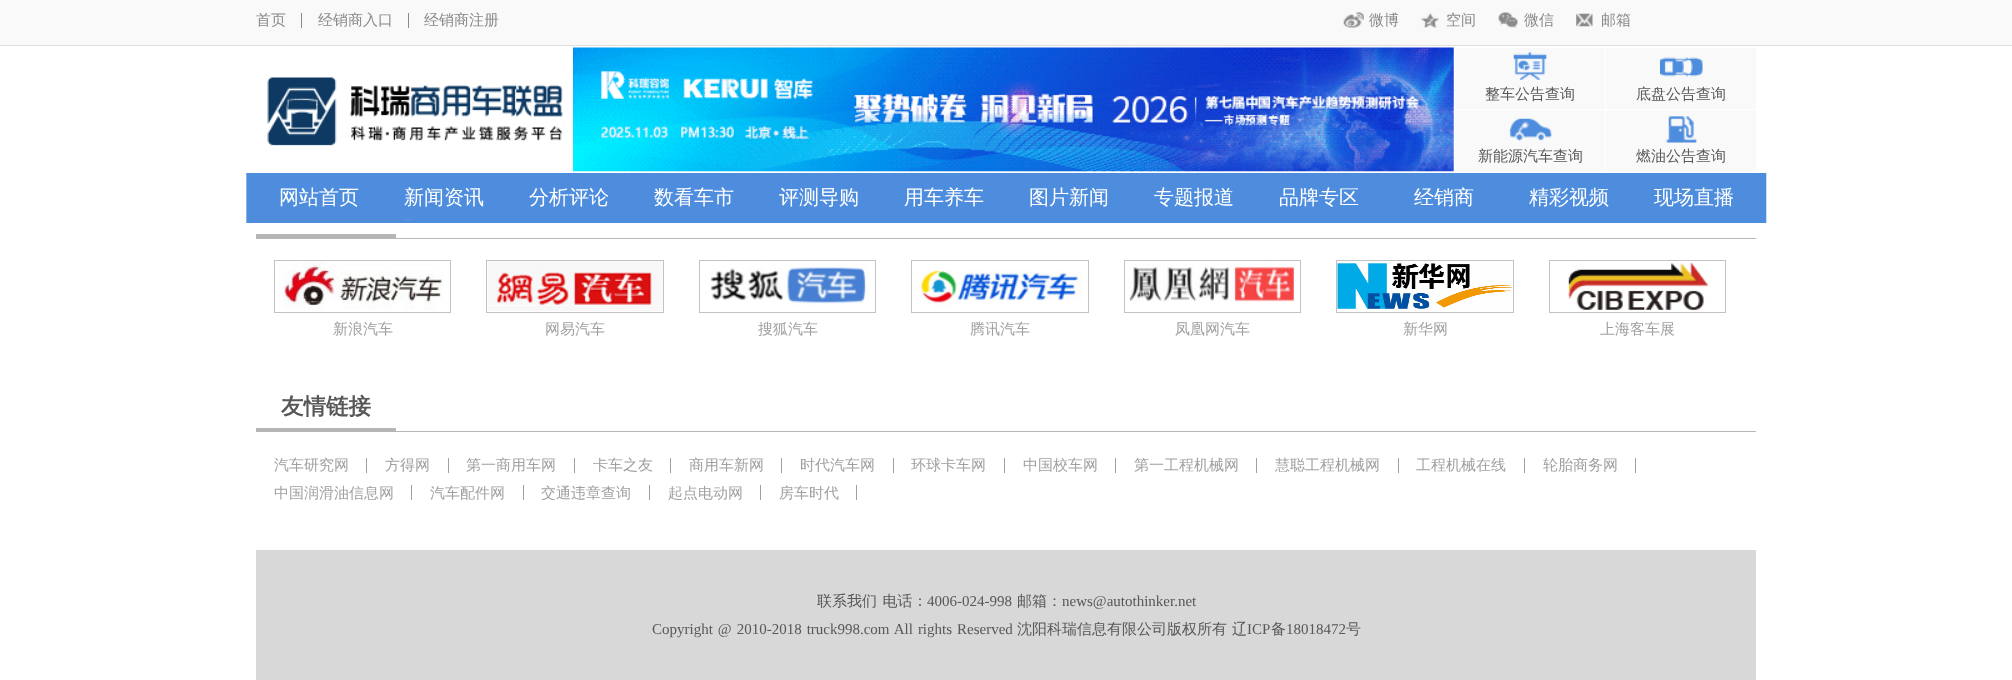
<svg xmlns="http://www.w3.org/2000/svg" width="2012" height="680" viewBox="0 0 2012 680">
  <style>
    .t1 { font: 500 15px WenQuanYi Zen Hei; fill: #898989; }
    .t2 { font: 500 15px WenQuanYi Zen Hei; fill: #595757; }
    .t3 { font: 500 20px WenQuanYi Zen Hei; fill: #fff; }
    .t4 { font: 500 15px WenQuanYi Zen Hei; fill: #9fa0a0; }
    .t5 { font: bold 22.5px WenQuanYi Zen Hei; fill: #595757; }
    .t6 { font: 15px Liberation Serif; fill: #595757; }
  </style>
  <defs>
    <clipPath id="clip1"><rect x="256" y="445" width="1500" height="55"/></clipPath>
  </defs>
  <rect width="100%" height="100%" fill="#fff"/>
  <rect x="256" y="46" width="1" height="2" fill="#e3e3e3"/>
  <rect x="658" y="46" width="1" height="2" fill="#e3e3e3"/>
  <rect x="831" y="46" width="1" height="2" fill="#e3e3e3"/>
  <rect x="1026" y="46" width="1" height="2" fill="#e3e3e3"/>
  <rect x="1388" y="46" width="1" height="2" fill="#e3e3e3"/>
  <rect x="1193" y="46" width="1" height="2" fill="#e3e3e3"/>
  <image x="256" y="46" width="1133" height="45" href="images/1.png"/>
  <rect x="0" y="0" width="2012" height="45" fill="#f9f9f9"/>
  <rect x="0" y="45" width="2012" height="1" fill="#dedede"/>
  <text x="256" y="25" class="t1">首页</text>
  <rect x="301" y="13" width="1" height="15" fill="#898989"/>
  <text x="318" y="25" class="t1">经销商入口</text>
  <rect x="408" y="13" width="1" height="15" fill="#898989"/>
  <text x="424" y="25" class="t1">经销商注册</text>
  <image x="1343" y="12" width="21" height="16" href="images/2.png"/>
  <text x="1369" y="25" class="t1">微博</text>
  <image x="1421" y="13" width="18" height="15" href="images/3.png"/>
  <text x="1446" y="25" class="t1">空间</text>
  <image x="1498" y="12" width="20" height="16" href="images/4.png"/>
  <text x="1524" y="25" class="t1">微信</text>
  <image x="1576" y="13" width="17" height="14" href="images/5.png"/>
  <text x="1601" y="25" class="t1">邮箱</text>
  <image x="267" y="77" width="296" height="69" href="images/6.png"/>
  <image x="573" y="47" width="881" height="125" href="images/7.png"/>
  <rect x="1455" y="48" width="150" height="61" fill="#f9f9f9"/>
  <image x="1513" y="52" width="34" height="28" href="images/8.png"/>
  <text x="1485" y="99" class="t2">整车公告查询</text>
  <rect x="1606" y="48" width="150" height="61" fill="#f9f9f9"/>
  <image x="1660" y="57" width="43" height="20" href="images/9.png"/>
  <text x="1636" y="99" class="t2">底盘公告查询</text>
  <rect x="1455" y="110" width="150" height="61" fill="#f9f9f9"/>
  <image x="1509" y="118" width="43" height="23" href="images/10.png"/>
  <text x="1478" y="161" class="t2">新能源汽车查询</text>
  <rect x="1606" y="110" width="150" height="61" fill="#f9f9f9"/>
  <image x="1666" y="116" width="31" height="27" href="images/11.png"/>
  <text x="1636" y="161" class="t2">燃油公告查询</text>
  <image x="246" y="173" width="1521" height="50" href="images/12.png"/>
  <text x="279" y="204" class="t3">网站首页</text>
  <text x="404" y="204" class="t3">新闻资讯</text>
  <text x="529" y="204" class="t3">分析评论</text>
  <text x="654" y="204" class="t3">数看车市</text>
  <text x="779" y="204" class="t3">评测导购</text>
  <text x="904" y="204" class="t3">用车养车</text>
  <text x="1029" y="204" class="t3">图片新闻</text>
  <text x="1154" y="204" class="t3">专题报道</text>
  <text x="1279" y="204" class="t3">品牌专区</text>
  <text x="1414" y="204" class="t3">经销商</text>
  <text x="1529" y="204" class="t3">精彩视频</text>
  <text x="1654" y="204" class="t3">现场直播</text>
  <rect x="256" y="238" width="1500" height="1" fill="#b6b6b6"/>
  <rect x="256" y="234" width="140" height="4" fill="#b6b6b6"/>
  <rect x="274.5" y="260.5" width="176" height="52" fill="none" stroke="#c2c2c2"/>
  <image x="279" y="261" width="164" height="49" href="images/13.png"/>
  <text x="333" y="334" class="t4">新浪汽车</text>
  <rect x="486.5" y="260.5" width="177" height="52" fill="none" stroke="#c2c2c2"/>
  <image x="487" y="261" width="176" height="50" href="images/14.png"/>
  <text x="545" y="334" class="t4">网易汽车</text>
  <rect x="699.5" y="260.5" width="176" height="52" fill="none" stroke="#c2c2c2"/>
  <image x="710" y="261" width="160" height="46" href="images/15.png"/>
  <text x="758" y="334" class="t4">搜狐汽车</text>
  <rect x="911.5" y="260.5" width="177" height="52" fill="none" stroke="#c2c2c2"/>
  <image x="912" y="270" width="171" height="38" href="images/16.png"/>
  <text x="970" y="334" class="t4">腾讯汽车</text>
  <rect x="1124.5" y="260.5" width="176" height="52" fill="none" stroke="#c2c2c2"/>
  <image x="1129" y="261" width="166" height="41" href="images/17.png"/>
  <text x="1175" y="334" class="t4">凤凰网汽车</text>
  <rect x="1336.5" y="260.5" width="177" height="52" fill="none" stroke="#c2c2c2"/>
  <image x="1337" y="263" width="176" height="48" href="images/18.png"/>
  <text x="1403" y="334" class="t4">新华网</text>
  <rect x="1549.5" y="260.5" width="176" height="52" fill="none" stroke="#c2c2c2"/>
  <image x="1568" y="262" width="141" height="48" href="images/19.png"/>
  <text x="1600" y="334" class="t4">上海客车展</text>
  <rect x="396" y="431" width="1360" height="1" fill="#b6b6b6"/>
  <rect x="256" y="428" width="140" height="4" fill="#b6b6b6"/>
  <text x="281" y="414" class="t5">友情链接</text>
  <rect x="366" y="458" width="1" height="15" fill="#9fa0a0"/>
  <text x="274" y="470" class="t4">汽车研究网</text>
  <rect x="448" y="458" width="1" height="15" fill="#9fa0a0"/>
  <text x="385" y="470" class="t4">方得网</text>
  <rect x="574" y="458" width="1" height="15" fill="#9fa0a0"/>
  <text x="466" y="470" class="t4">第一商用车网</text>
  <rect x="670" y="458" width="1" height="15" fill="#9fa0a0"/>
  <text x="593" y="470" class="t4">卡车之友</text>
  <rect x="781" y="458" width="1" height="15" fill="#9fa0a0"/>
  <text x="689" y="470" class="t4">商用车新网</text>
  <rect x="893" y="458" width="1" height="15" fill="#9fa0a0"/>
  <text x="800" y="470" class="t4">时代汽车网</text>
  <rect x="1004" y="458" width="1" height="15" fill="#9fa0a0"/>
  <text x="911" y="470" class="t4">环球卡车网</text>
  <rect x="1115" y="458" width="1" height="15" fill="#9fa0a0"/>
  <text x="1023" y="470" class="t4">中国校车网</text>
  <rect x="1256" y="458" width="1" height="15" fill="#9fa0a0"/>
  <text x="1134" y="470" class="t4">第一工程机械网</text>
  <rect x="1398" y="458" width="1" height="15" fill="#9fa0a0"/>
  <text x="1275" y="470" class="t4">慧聪工程机械网</text>
  <rect x="1524" y="458" width="1" height="15" fill="#9fa0a0"/>
  <text x="1416" y="470" class="t4">工程机械在线</text>
  <rect x="1635" y="458" width="1" height="15" fill="#9fa0a0"/>
  <text x="1543" y="470" class="t4">轮胎商务网</text>
  <rect x="411" y="485" width="1" height="15" fill="#9fa0a0"/>
  <text x="274" y="498" class="t4">中国润滑油信息网</text>
  <rect x="523" y="485" width="1" height="15" fill="#9fa0a0"/>
  <text x="430" y="498" class="t4">汽车配件网</text>
  <rect x="649" y="485" width="1" height="15" fill="#9fa0a0"/>
  <g clip-path="url(#clip1)">
    <text x="541" y="498" class="t4">交通违章查询</text>
  </g>
  <rect x="760" y="485" width="1" height="15" fill="#9fa0a0"/>
  <g clip-path="url(#clip1)">
    <text x="668" y="498" class="t4">起点电动网</text>
  </g>
  <rect x="856" y="485" width="1" height="15" fill="#9fa0a0"/>
  <text x="779" y="498" class="t4">房车时代</text>
  <rect x="256" y="550" width="1500" height="130" fill="#d8d8d8"/>
  <text x="817" y="606" word-spacing="1" class="t2">联系我们 电话：</text>
  <text x="927" y="606" class="t6">4006-024-998</text>
  <text x="1017" y="606" class="t2">邮箱：</text>
  <text x="1062" y="606" class="t6">news@autothinker.net</text>
  <text x="652" y="634" word-spacing="1.25" class="t6">Copyright @ 2010-2018 truck998.com All rights Reserved</text>
  <text x="1017" y="634" class="t2">沈阳科瑞信息有限公司版权所有</text>
  <text x="1232" y="634" class="t2">辽</text>
  <text x="1247" y="634" class="t6">ICP</text>
  <text x="1271" y="634" class="t2">备</text>
  <text x="1286" y="634" class="t6">18018472</text>
  <text x="1346" y="634" class="t2">号</text>
</svg>
